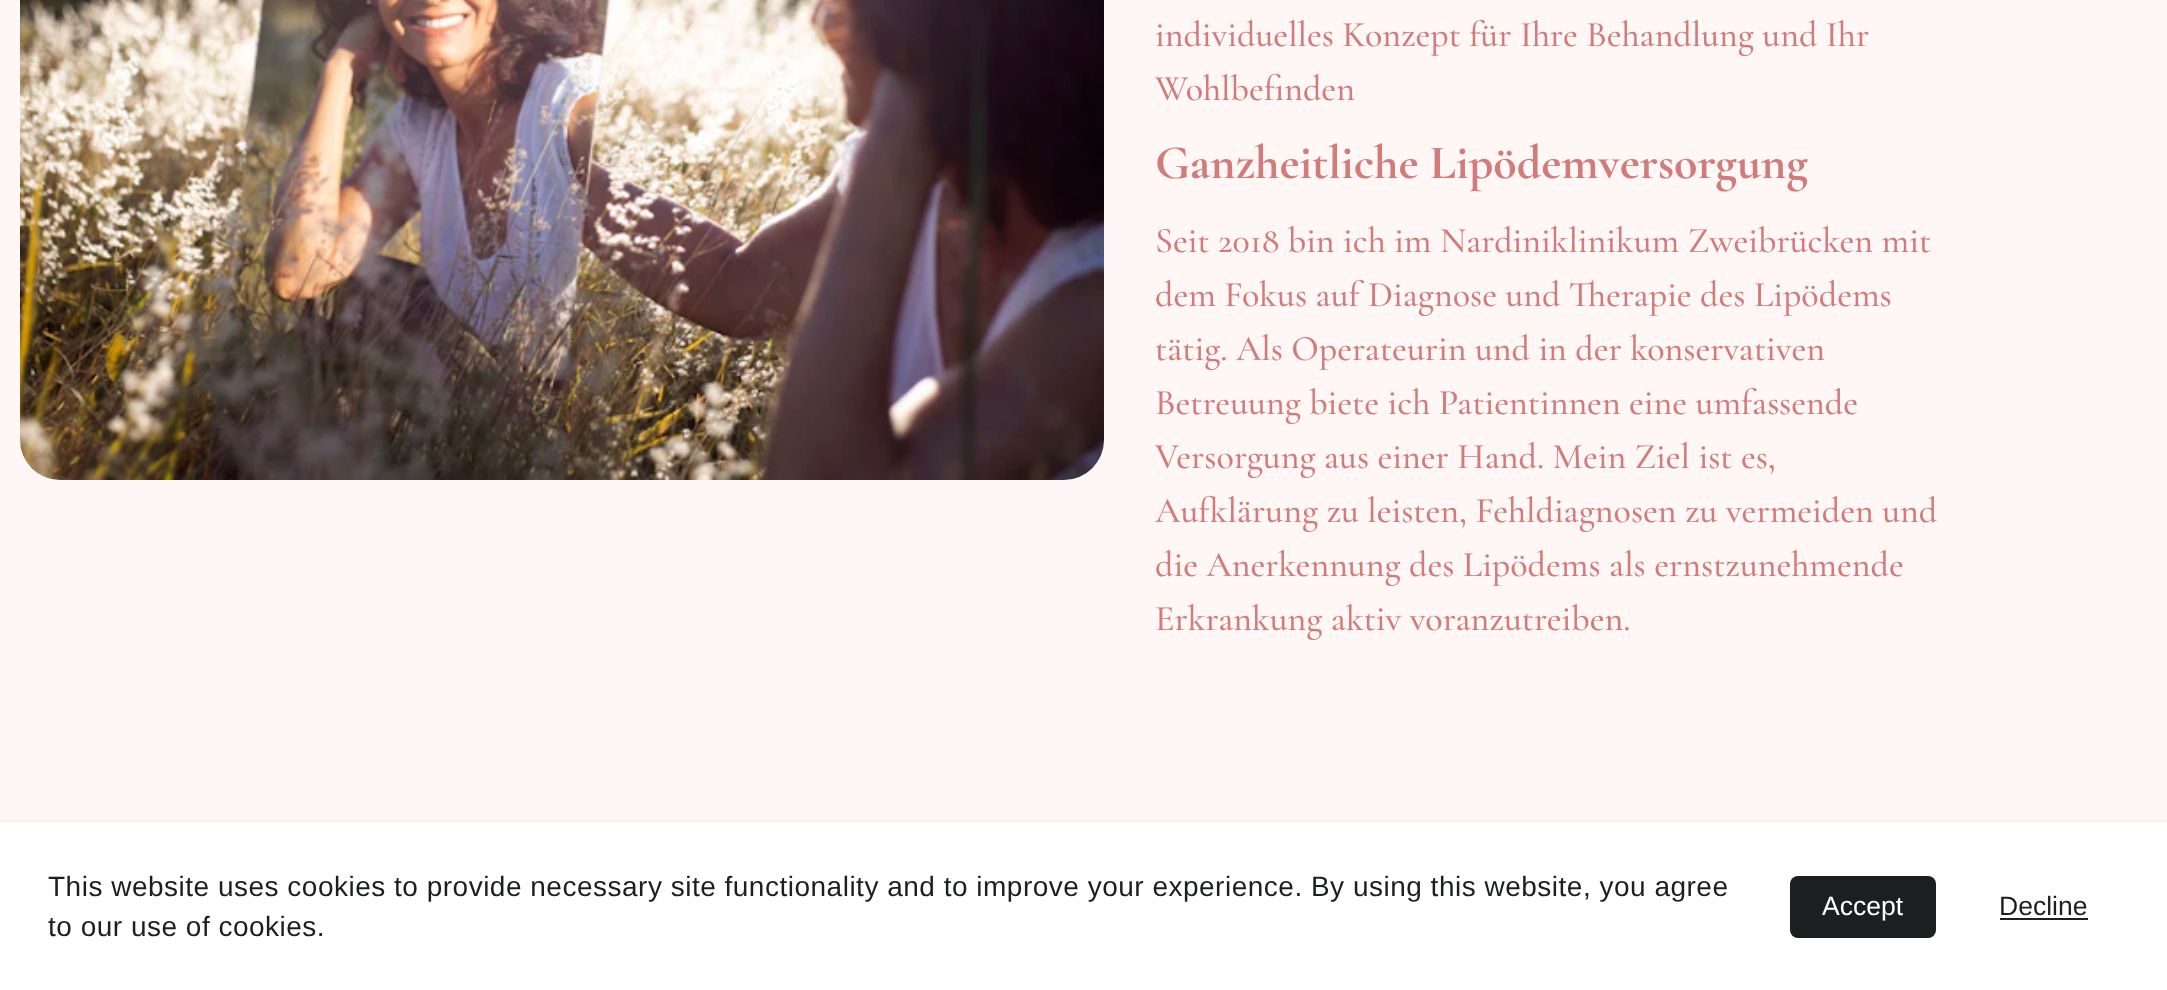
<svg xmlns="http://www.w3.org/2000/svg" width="2167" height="990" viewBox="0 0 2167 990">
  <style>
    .t1 { font: 300 36px Cormorant Garamond; fill: #d17b7b; }
    .t2 { font: 300 48px 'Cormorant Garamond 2'; fill: #d17b7b; }
    .t3 { font: 28px Liberation Sans; letter-spacing: 0.5px; fill: #1d1e20; }
    .t4 { font: 26.5px Liberation Sans; fill: #fff; }
    .t5 { font: 26.5px Liberation Sans; fill: #1d1e20; }
  </style>
  <rect width="100%" height="100%" fill="#fff6f6"/>
  <image x="20" y="0" width="1084" height="480" href="images/1.png"/>
  <text x="1155" y="46" class="t1">individuelles Konzept für Ihre Behandlung und Ihr</text>
  <text x="1155" y="100" class="t1">Wohlbefinden</text>
  <text x="1155" y="178" class="t2">Ganzheitliche Lipödemversorgung</text>
  <text x="1155" y="252" class="t1">Seit 2018 bin ich im Nardiniklinikum Zweibrücken mit</text>
  <text x="1155" y="306" class="t1">dem Fokus auf Diagnose und Therapie des Lipödems</text>
  <text x="1155" y="360" class="t1">tätig. Als Operateurin und in der konservativen</text>
  <text x="1155" y="414" class="t1">Betreuung biete ich Patientinnen eine umfassende</text>
  <text x="1155" y="468" class="t1">Versorgung aus einer Hand. Mein Ziel ist es,</text>
  <text x="1155" y="522" class="t1">Aufklärung zu leisten, Fehldiagnosen zu vermeiden und</text>
  <text x="1155" y="576" class="t1">die Anerkennung des Lipödems als ernstzunehmende</text>
  <text x="1155" y="630" class="t1">Erkrankung aktiv voranzutreiben.</text>
  <rect x="0" y="822" width="2167" height="168" fill="#fff"/>
  <rect x="0" y="820" width="2167" height="2" fill="#f2f3f6"/>
  <text x="48" y="896" class="t3">This website uses cookies to provide necessary site functionality and to improve your experience. By using this website, you agree</text>
  <text x="48" y="936" class="t3">to our use of cookies.</text>
  <rect x="1790" y="876" width="146" height="62" rx="8" fill="#1d1e20"/>
  <text x="1822" y="915" class="t4">Accept</text>
  <text x="1999" y="915" class="t5">Decline</text>
  <rect x="2000" y="918" width="88" height="2" fill="#1d1e20"/>
</svg>
